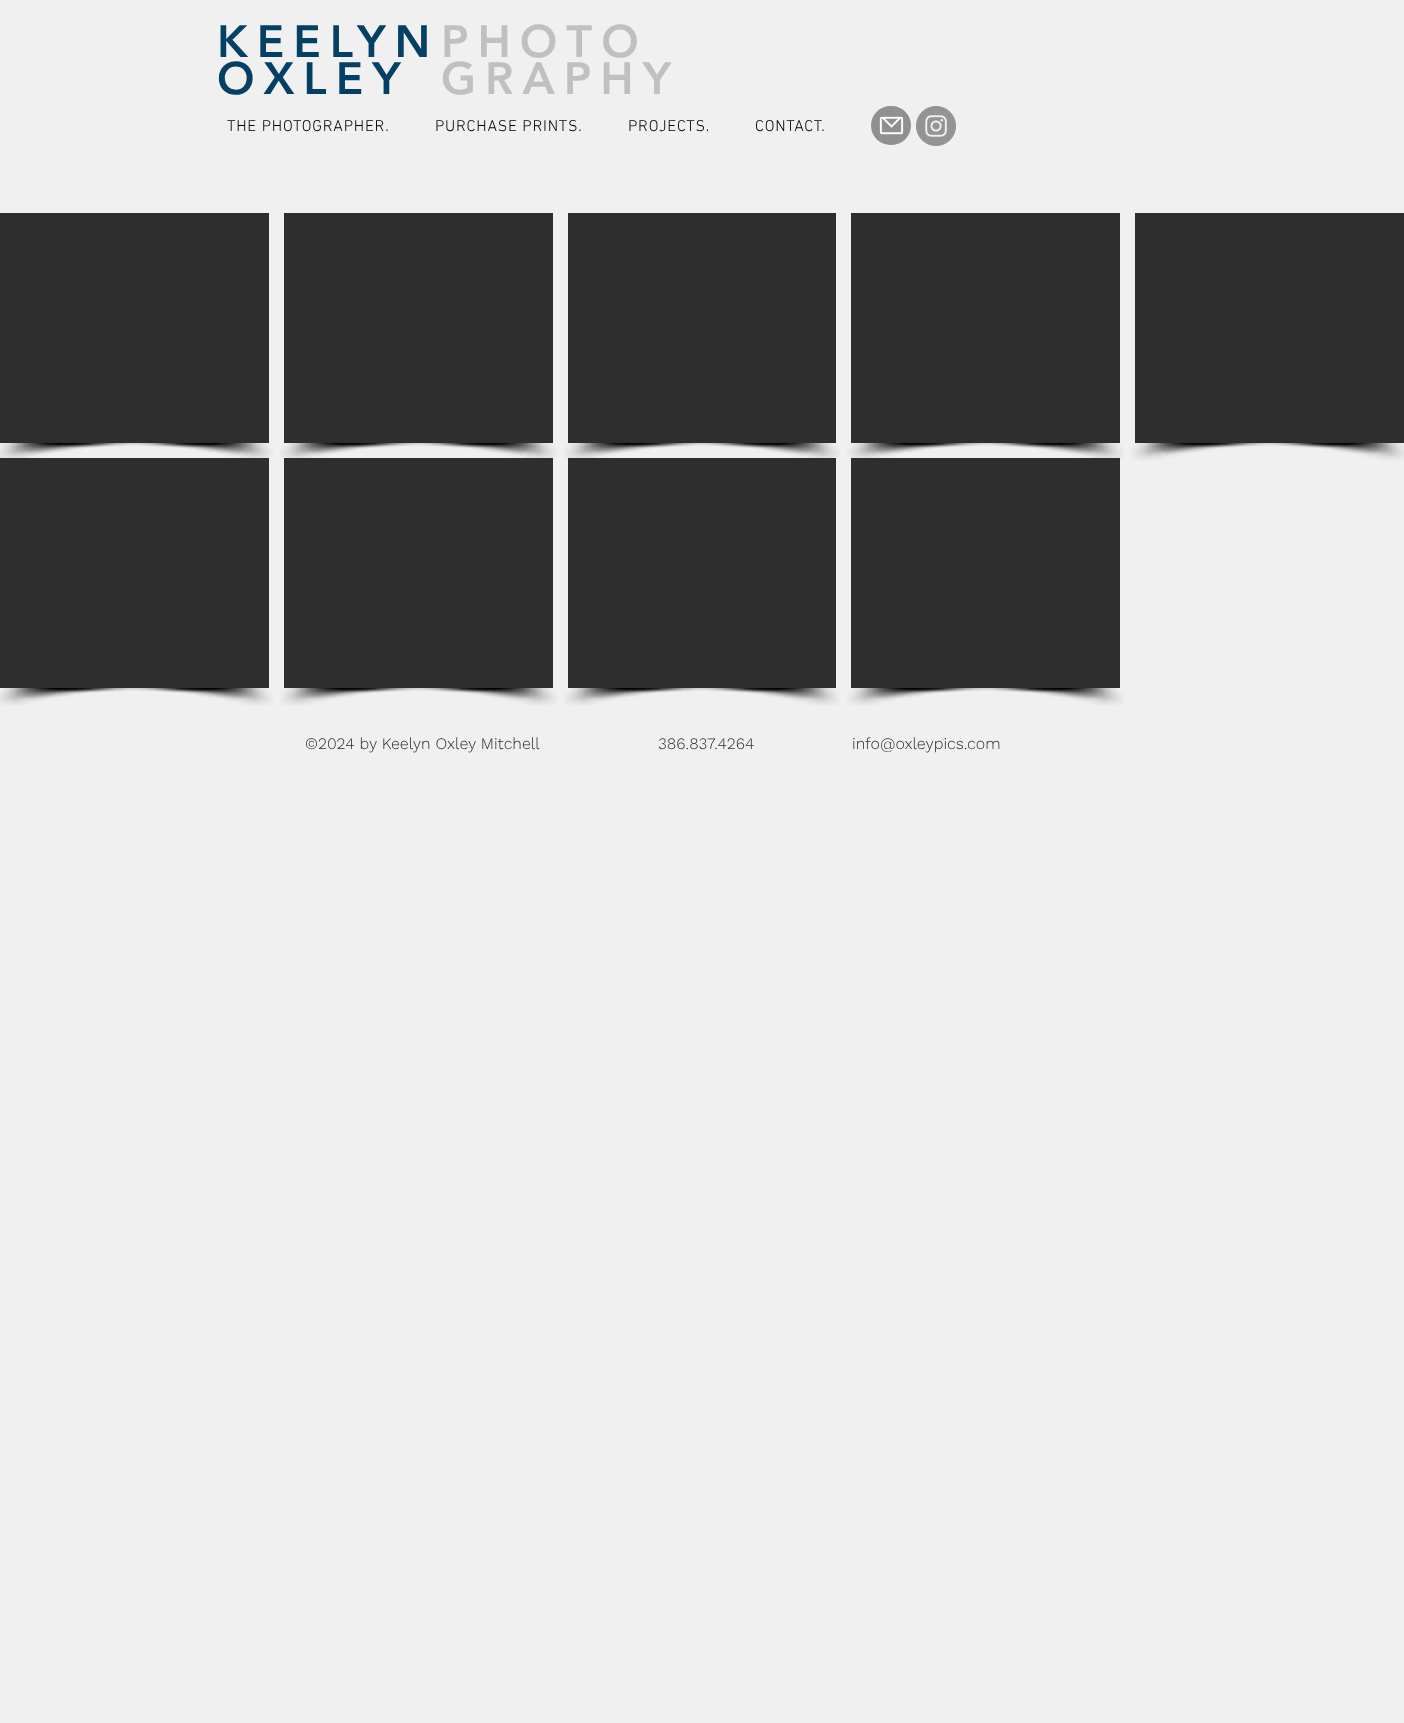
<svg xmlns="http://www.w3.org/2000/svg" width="1404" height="1723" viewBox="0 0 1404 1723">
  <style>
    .t1 { font: 900 45px 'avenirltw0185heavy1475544'; letter-spacing: 9px; fill: #043f64; }
    .t2 { font: 900 45px 'avenirltw0185heavy1475544'; letter-spacing: 9px; fill: #c0c0c0; }
    .t3 { font: 300 16px 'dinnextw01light'; letter-spacing: 0.75px; fill: #000; }
    .t4 { font: 300 16px Work Sans; fill: #2f2e2e; }
  </style>
  <rect width="100%" height="100%" fill="#f0f0f0"/>
  <text x="217" y="57" class="t1">KEELYN</text>
  <text x="441" y="57" class="t2">PHOTO</text>
  <text x="217" y="94" class="t1">OXLEY</text>
  <text x="441" y="94" class="t2">GRAPHY</text>
  <text x="227" y="131" class="t3">THE PHOTOGRAPHER.</text>
  <text x="435" y="131" class="t3">PURCHASE PRINTS.</text>
  <text x="628" y="131" class="t3">PROJECTS.</text>
  <text x="755" y="131" class="t3">CONTACT.</text>
  <rect x="871" y="106" width="40" height="39" rx="19.5" fill="#909090"/>
  <image x="879" y="116" width="25" height="19" href="images/1.png"/>
  <image x="916" y="106" width="40" height="40" href="images/2.png"/>
  <rect x="0" y="213" width="269" height="230" fill="#2f2e2e"/>
  <image x="0" y="443" width="150" height="15" href="images/3.png"/>
  <image x="119" y="443" width="154" height="15" href="images/4.png"/>
  <rect x="284" y="213" width="269" height="230" fill="#2f2e2e"/>
  <image x="280" y="443" width="154" height="15" href="images/5.png"/>
  <image x="403" y="443" width="154" height="15" href="images/4.png"/>
  <rect x="568" y="213" width="268" height="230" fill="#2f2e2e"/>
  <image x="564" y="443" width="154" height="15" href="images/5.png"/>
  <image x="686" y="443" width="154" height="15" href="images/6.png"/>
  <rect x="851" y="213" width="269" height="230" fill="#2f2e2e"/>
  <image x="847" y="443" width="154" height="15" href="images/5.png"/>
  <image x="970" y="443" width="154" height="15" href="images/4.png"/>
  <rect x="1135" y="213" width="269" height="230" fill="#2f2e2e"/>
  <image x="1131" y="443" width="154" height="18" href="images/7.png"/>
  <image x="1254" y="443" width="150" height="18" href="images/8.png"/>
  <rect x="0" y="458" width="269" height="230" fill="#2f2e2e"/>
  <image x="0" y="688" width="150" height="18" href="images/9.png"/>
  <image x="119" y="688" width="154" height="18" href="images/10.png"/>
  <rect x="284" y="458" width="269" height="230" fill="#2f2e2e"/>
  <image x="280" y="688" width="154" height="18" href="images/7.png"/>
  <image x="403" y="688" width="154" height="18" href="images/10.png"/>
  <rect x="568" y="458" width="268" height="230" fill="#2f2e2e"/>
  <image x="564" y="688" width="154" height="18" href="images/7.png"/>
  <image x="686" y="688" width="154" height="18" href="images/11.png"/>
  <rect x="851" y="458" width="269" height="230" fill="#2f2e2e"/>
  <image x="847" y="688" width="154" height="18" href="images/7.png"/>
  <image x="970" y="688" width="154" height="18" href="images/10.png"/>
  <text x="305" y="749" class="t4">©2024 by Keelyn Oxley Mitchell</text>
  <text x="658" y="749" class="t4">386.837.4264</text>
  <text x="852" y="749" class="t4">info@oxleypics.com</text>
</svg>
